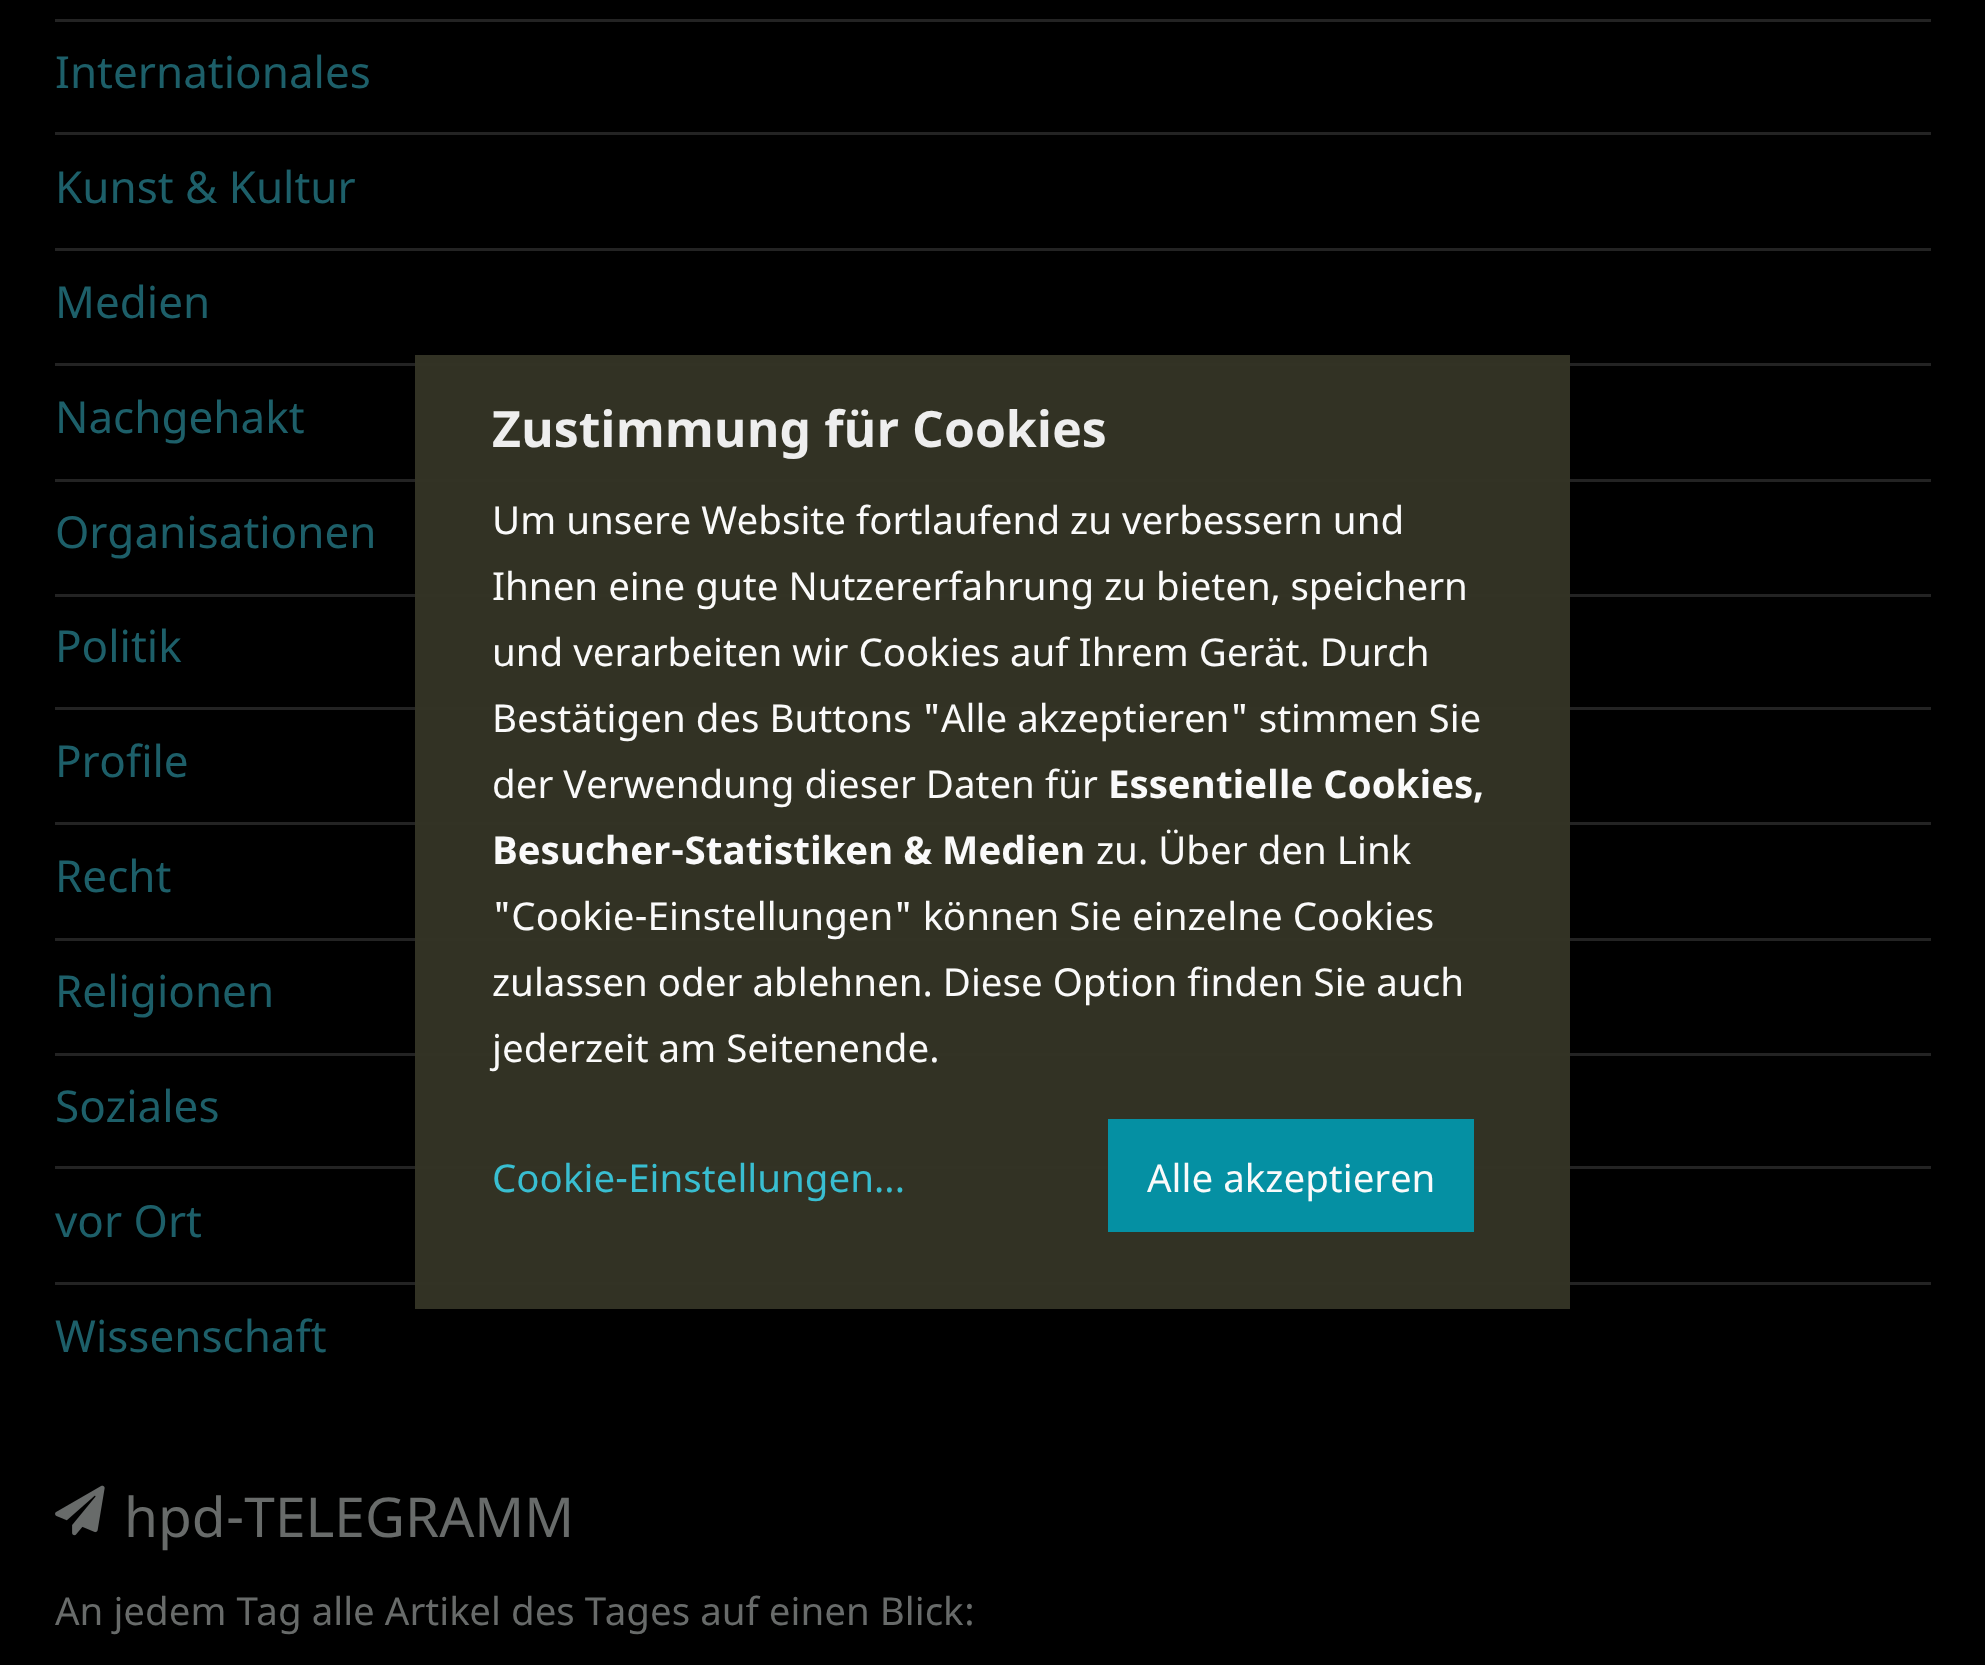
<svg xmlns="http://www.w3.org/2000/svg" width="1985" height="1665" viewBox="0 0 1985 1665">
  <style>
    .t1 { font: 44px Noto Sans; fill: #1d5f69; }
    .t2 { font: 55px Noto Sans; fill: #686b6a; }
    .t3 { font: 38.5px Noto Sans; fill: #686b6a; }
    .t4 { font: bold 50px Noto Sans; fill: #eee; }
    .t5 { font: 38.5px Noto Sans; fill: #fafafa; }
    .t6 { font: bold 38.5px Noto Sans; fill: #fafafa; }
    .t7 { font: 38.5px Noto Sans; fill: #39bed1; }
  </style>
  <rect width="100%" height="100%" fill="#000"/>
  <rect x="55" y="19" width="1876" height="3" fill="#232323"/>
  <text x="55" y="88" class="t1">Internationales</text>
  <rect x="55" y="132" width="1876" height="3" fill="#232323"/>
  <text x="55" y="203" class="t1">Kunst &amp; Kultur</text>
  <rect x="55" y="248" width="1876" height="3" fill="#232323"/>
  <text x="55" y="318" class="t1">Medien</text>
  <rect x="55" y="363" width="1876" height="3" fill="#232323"/>
  <text x="55" y="433" class="t1">Nachgehakt</text>
  <rect x="55" y="479" width="1876" height="3" fill="#232323"/>
  <text x="55" y="548" class="t1">Organisationen</text>
  <rect x="55" y="594" width="1876" height="3" fill="#232323"/>
  <text x="55" y="662" class="t1">Politik</text>
  <rect x="55" y="707" width="1876" height="3" fill="#232323"/>
  <text x="55" y="777" class="t1">Profile</text>
  <rect x="55" y="822" width="1876" height="3" fill="#232323"/>
  <text x="55" y="892" class="t1">Recht</text>
  <rect x="55" y="938" width="1876" height="3" fill="#232323"/>
  <text x="55" y="1007" class="t1">Religionen</text>
  <rect x="55" y="1053" width="1876" height="3" fill="#232323"/>
  <text x="55" y="1122" class="t1">Soziales</text>
  <rect x="55" y="1166" width="1876" height="3" fill="#232323"/>
  <text x="55" y="1237" class="t1">vor Ort</text>
  <rect x="55" y="1282" width="1876" height="3" fill="#232323"/>
  <text x="55" y="1352" class="t1">Wissenschaft</text>
  <image x="55" y="1485" width="50" height="51" href="images/1.png"/>
  <text x="124" y="1537" class="t2">hpd-TELEGRAMM</text>
  <text x="55" y="1625" class="t3">An jedem Tag alle Artikel des Tages auf einen Blick:</text>
  <rect x="415" y="355" width="1155" height="954" fill="#353526f2"/>
  <text x="492" y="447" class="t4">Zustimmung für Cookies</text>
  <text x="492" y="534" class="t5">Um unsere Website fortlaufend zu verbessern und</text>
  <text x="492" y="600" class="t5">Ihnen eine gute Nutzererfahrung zu bieten, speichern</text>
  <text x="492" y="666" class="t5">und verarbeiten wir Cookies auf Ihrem Gerät. Durch</text>
  <text x="492" y="732" class="t5">Bestätigen des Buttons "Alle akzeptieren" stimmen Sie</text>
  <text x="492" y="798" class="t5">der Verwendung dieser Daten für</text>
  <text x="1108" y="798" class="t6">Essentielle Cookies,</text>
  <text x="492" y="864" class="t6">Besucher-Statistiken &amp; Medien</text>
  <text x="1096" y="864" class="t5">zu. Über den Link</text>
  <text x="492" y="930" class="t5">"Cookie-Einstellungen" können Sie einzelne Cookies</text>
  <text x="492" y="996" class="t5">zulassen oder ablehnen. Diese Option finden Sie auch</text>
  <text x="492" y="1062" class="t5">jederzeit am Seitenende.</text>
  <text x="492" y="1192" class="t7">Cookie-Einstellungen...</text>
  <rect x="1108" y="1119" width="366" height="113" fill="#0590a3"/>
  <text x="1147" y="1192" class="t5">Alle akzeptieren</text>
</svg>
